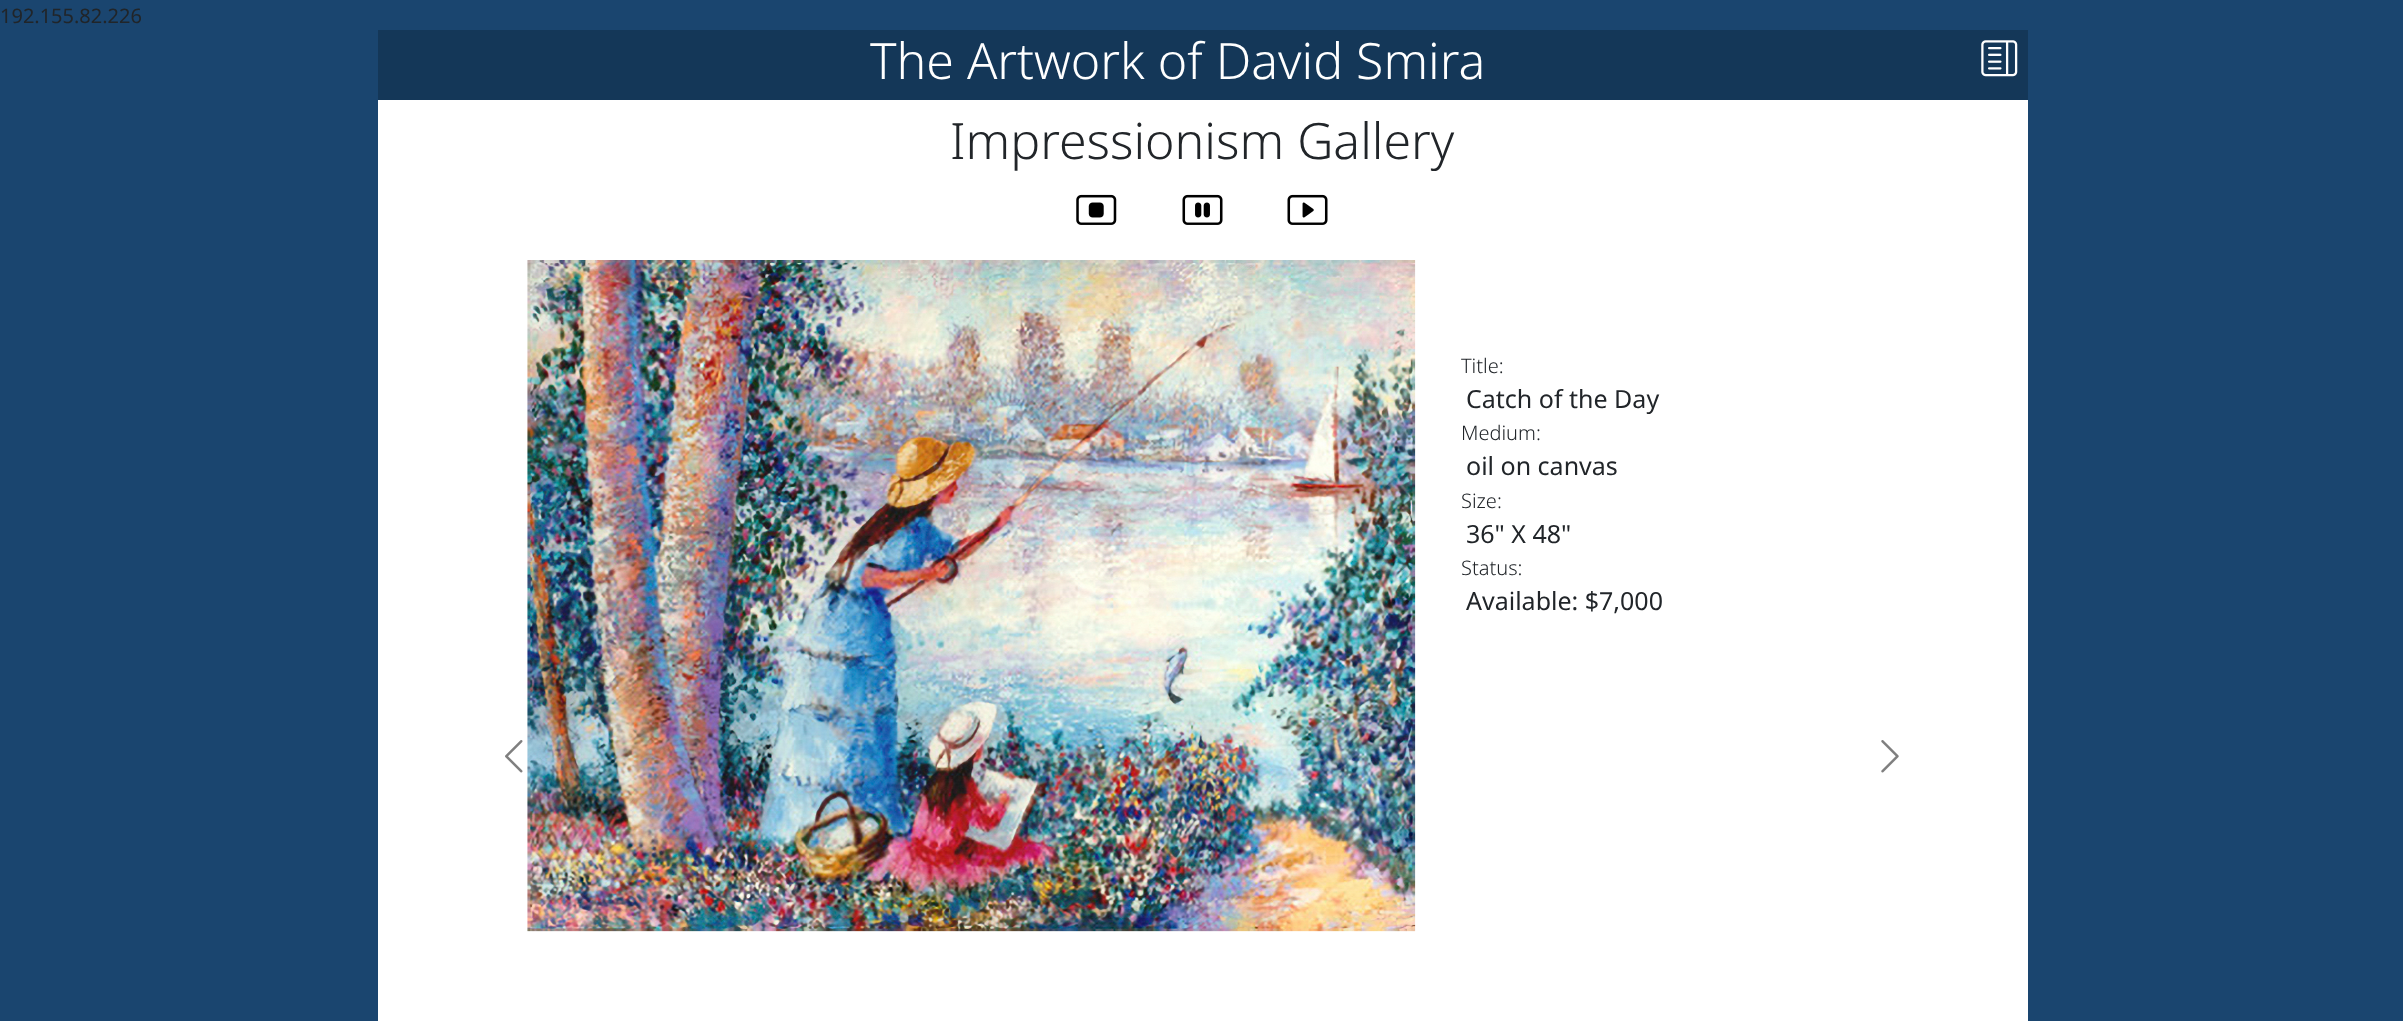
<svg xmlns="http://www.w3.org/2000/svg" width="2403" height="1021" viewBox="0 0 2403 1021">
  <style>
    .t1 { font: 20px Noto Sans; fill: #212529; }
    .t2 { font: 300 50px Noto Sans; fill: #fff; }
    .t3 { font: 300 50px Noto Sans; fill: #212529; }
    .t4 { font: 300 20px Noto Sans; fill: #212529; }
    .t5 { font: 25px Noto Sans; fill: #212529; }
  </style>
  <rect width="100%" height="100%" fill="#1a456f"/>
  <text x="0" y="23" class="t1">192.155.82.226</text>
  <rect x="378" y="100" width="1650" height="921" fill="#fff"/>
  <rect x="378" y="30" width="1650" height="70" fill="#143758"/>
  <text x="870" y="79" class="t2">The Artwork of David Smira</text>
  <image x="1981" y="40" width="37" height="37" href="images/1.png"/>
  <text x="950" y="159" class="t3">Impressionism Gallery</text>
  <image x="1076" y="194" width="41" height="31" href="images/2.png"/>
  <image x="1182" y="194" width="41" height="31" href="images/3.png"/>
  <image x="1287" y="194" width="41" height="31" href="images/4.png"/>
  <image x="527" y="260" width="889" height="672" href="images/5.png"/>
  <text x="1461" y="373" class="t4">Title:</text>
  <text x="1466" y="408" class="t5">Catch of the Day</text>
  <text x="1461" y="440" class="t4">Medium:</text>
  <text x="1466" y="475" class="t5">oil on canvas</text>
  <text x="1461" y="508" class="t4">Size:</text>
  <text x="1466" y="543" class="t5">36" X 48"</text>
  <text x="1461" y="575" class="t4">Status:</text>
  <text x="1466" y="610" class="t5">Available: $7,000</text>
  <image x="505" y="740" width="18" height="33" href="images/6.png"/>
  <image x="1881" y="740" width="18" height="33" href="images/7.png"/>
</svg>
